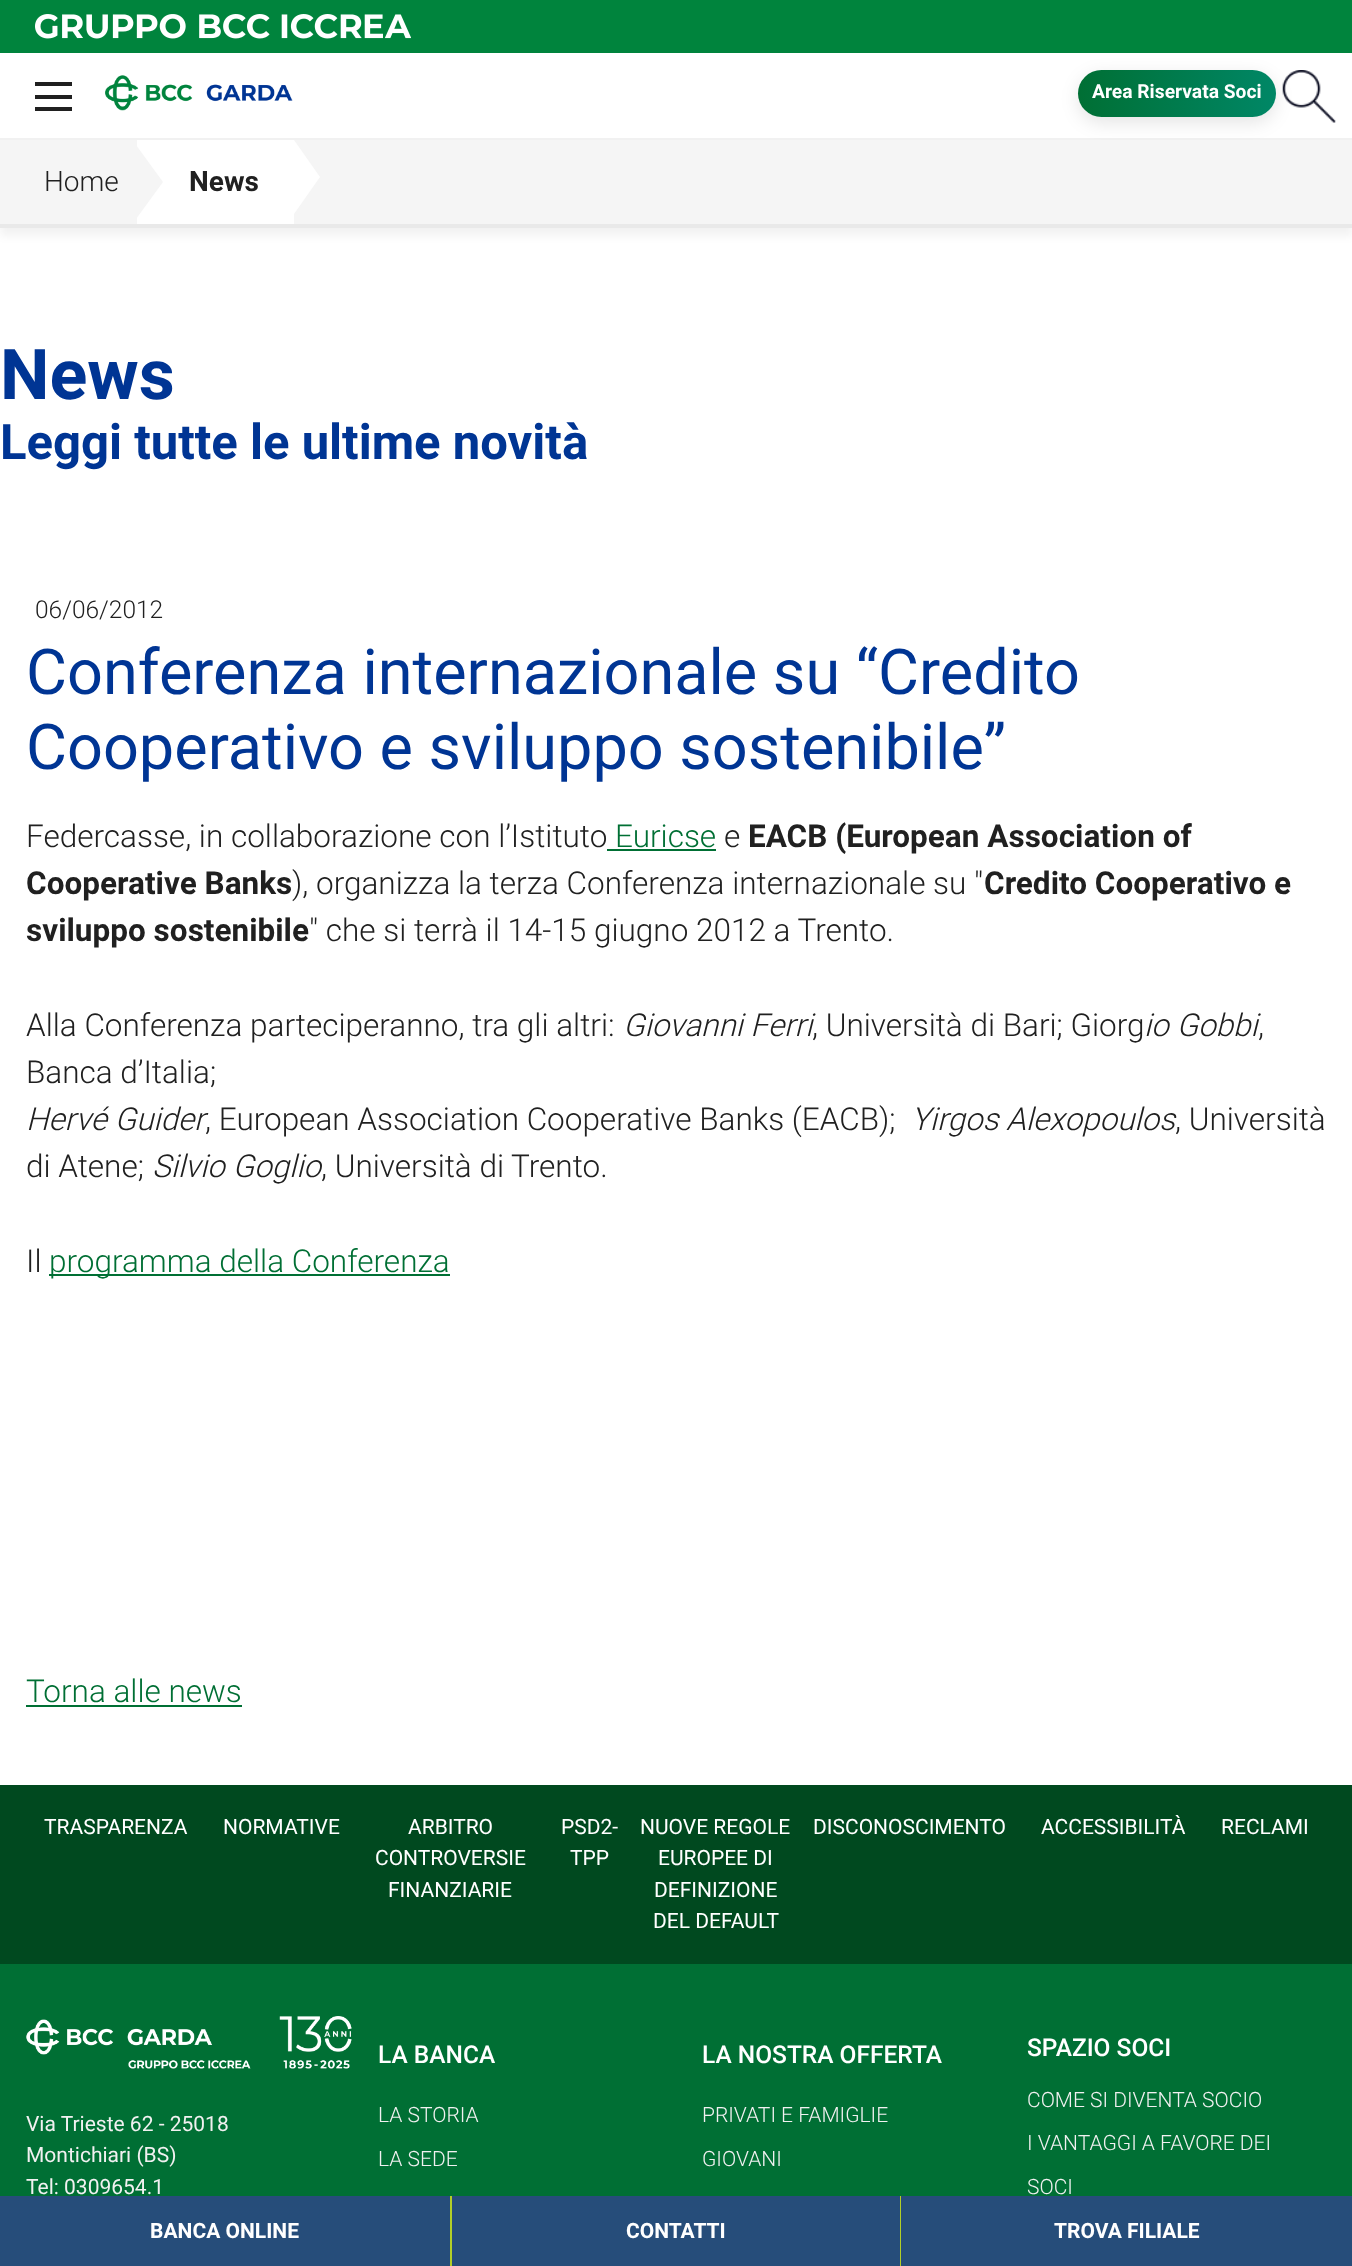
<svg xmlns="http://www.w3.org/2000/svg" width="1352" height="2266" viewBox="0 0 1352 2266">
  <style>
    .t1 { font: bold 19.25px Roboto; fill: #fff; }
    .t2 { font: 300 28px Roboto; fill: #202020; }
    .t3 { font: bold 28px Roboto; fill: #202020; }
    .t4 { font: bold 70px Roboto; fill: #003594; }
    .t5 { font: bold 49px Roboto; fill: #003594; }
    .t6 { font: 300 24.5px Roboto; fill: #202020; }
    .t7 { font: 63px Roboto; fill: #003594; }
    .t8 { font: 300 31.5px Roboto; fill: #202020; }
    .t9 { font: 300 31.5px Roboto; fill: #006f34; }
    .t10 { font: bold 31.5px Roboto; fill: #202020; }
    .t11 { font: italic 300 31.5px Roboto; fill: #202020; }
    .t12 { font: 21px Roboto; fill: #fff; }
    .t13 { font: 21px Roboto; fill: #f1f1f1; }
    .t14 { font: 500 24.5px Roboto; fill: #fff; }
    .t15 { font: 300 21px Roboto; fill: #f1f1f1; }
    .t16 { font: bold 21px Roboto; fill: #fff; }
  </style>
  <defs>
    <linearGradient id="g1" gradientUnits="userSpaceOnUse" x1="1276" y1="94" x2="1078" y2="94"><stop offset="0" stop-color="#008766"/><stop offset="1" stop-color="#006f34"/></linearGradient>
  </defs>
  <rect width="100%" height="100%" fill="#fff"/>
  <rect x="0" y="0" width="1352" height="53" fill="#00843d"/>
  <image x="35" y="14" width="376" height="25" href="images/1.png"/>
  <rect x="0" y="149" width="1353" height="87" fill="#0000000d" filter="blur(4.5px)"/>
  <rect x="0" y="138" width="1352" height="2" fill="#f1f1f1"/>
  <rect x="35" y="95" width="37" height="4" fill="#202020"/>
  <rect x="35" y="82" width="37" height="4" fill="#202020"/>
  <rect x="35" y="107" width="37" height="4" fill="#202020"/>
  <image x="105" y="75" width="188" height="36" href="images/2.png"/>
  <rect x="0" y="140" width="1352" height="84" fill="#f5f5f5"/>
  <rect x="1078" y="75" width="198" height="48" rx="24" fill="#0000001a" filter="blur(9px)"/>
  <rect x="1078" y="70" width="198" height="47" rx="23.5" fill="url(#g1)"/>
  <text x="1092" y="98" class="t1">Area Riservata Soci</text>
  <image x="1282" y="70" width="54" height="53" href="images/3.png"/>
  <rect x="0" y="224" width="1352" height="4" fill="#e9e9e9"/>
  <text x="44" y="191" class="t2">Home</text>
  <rect x="137" y="140" width="157" height="84" fill="#fff"/>
  <path d="M136 219V145L163 182Z" fill="#f5f5f5"/>
  <text x="189" y="191" class="t3">News</text>
  <path d="M294 214V140L320 177Z" fill="#fff"/>
  <text x="0" y="399" class="t4">News</text>
  <text x="0" y="459" class="t5">Leggi tutte le ultime novità</text>
  <text x="35" y="618" class="t6">06/06/2012</text>
  <text x="26" y="694" class="t7">Conferenza internazionale su “Credito</text>
  <text x="26" y="769" class="t7">Cooperativo e sviluppo sostenibile”</text>
  <text x="26" y="847" class="t8">Federcasse, in collaborazione con l’Istituto</text>
  <text x="615" y="847" class="t9">Euricse</text>
  <rect x="607" y="849" width="109" height="2" fill="#006f34"/>
  <text x="724" y="847" class="t8">e</text>
  <text x="748" y="847" class="t10">EACB (European Association of</text>
  <text x="26" y="894" class="t10">Cooperative Banks</text>
  <text x="292" y="894" class="t8">), organizza la terza Conferenza internazionale su "</text>
  <text x="984" y="894" class="t10">Credito Cooperativo e</text>
  <text x="26" y="941" class="t10">sviluppo sostenibile</text>
  <text x="309" y="941" class="t8">" che si terrà il 14-15 giugno 2012 a Trento.</text>
  <text x="26" y="1036" class="t8">Alla Conferenza parteciperanno, tra gli altri:</text>
  <text x="623" y="1036" class="t11">Giovanni Ferri</text>
  <text x="812" y="1036" class="t8">, Università di Bari; Giorg</text>
  <text x="1144" y="1036" class="t11">io Gobbi</text>
  <text x="1258" y="1036" class="t8">,</text>
  <text x="26" y="1083" class="t8">Banca d’Italia;</text>
  <text x="26" y="1130" class="t11">Hervé Guider</text>
  <text x="205" y="1130" class="t8">, European Association Cooperative Banks (EACB);</text>
  <text x="911" y="1130" class="t11">Yirgos Alexopoulos</text>
  <text x="1175" y="1130" class="t8">, Università</text>
  <text x="26" y="1177" class="t8">di Atene;</text>
  <text x="152" y="1177" class="t11">Silvio Goglio</text>
  <text x="321" y="1177" class="t8">, Università di Trento.</text>
  <text x="26" y="1272" class="t8">Il</text>
  <rect x="49" y="1274" width="401" height="2" fill="#006f34"/>
  <text x="49" y="1272" class="t9">programma della Conferenza</text>
  <text x="26" y="1702" class="t9">Torna alle news</text>
  <rect x="26" y="1705" width="216" height="2" fill="#006f34"/>
  <rect x="0" y="1785" width="1352" height="179" fill="#00491f"/>
  <text x="44" y="1834" class="t12">TRASPARENZA</text>
  <text x="223" y="1834" class="t12">NORMATIVE</text>
  <text x="408" y="1834" class="t12">ARBITRO</text>
  <text x="375" y="1865" class="t12">CONTROVERSIE</text>
  <text x="388" y="1897" class="t12">FINANZIARIE</text>
  <text x="561" y="1834" class="t12">PSD2-</text>
  <text x="570" y="1865" class="t12">TPP</text>
  <text x="640" y="1834" class="t12">NUOVE REGOLE</text>
  <text x="658" y="1865" class="t12">EUROPEE DI</text>
  <text x="654" y="1897" class="t12">DEFINIZIONE</text>
  <text x="653" y="1928" class="t12">DEL DEFAULT</text>
  <text x="813" y="1834" class="t12">DISCONOSCIMENTO</text>
  <text x="1041" y="1834" class="t12">ACCESSIBILITÀ</text>
  <text x="1221" y="1834" class="t12">RECLAMI</text>
  <rect x="0" y="1964" width="1352" height="232" fill="#006f34"/>
  <image x="26" y="2016" width="326" height="53" href="images/4.png"/>
  <text x="26" y="2131" class="t13">Via Trieste 62 - 25018</text>
  <text x="26" y="2162" class="t13">Montichiari (BS)</text>
  <text x="26" y="2194" class="t13">Tel: 0309654.1</text>
  <text x="378" y="2063" class="t14">LA BANCA</text>
  <text x="378" y="2122" class="t15">LA STORIA</text>
  <text x="378" y="2166" class="t15">LA SEDE</text>
  <text x="702" y="2063" class="t14">LA NOSTRA OFFERTA</text>
  <text x="702" y="2122" class="t15">PRIVATI E FAMIGLIE</text>
  <text x="702" y="2166" class="t15">GIOVANI</text>
  <text x="1027" y="2056" class="t14">SPAZIO SOCI</text>
  <text x="1027" y="2107" class="t15">COME SI DIVENTA SOCIO</text>
  <text x="1027" y="2150" class="t15">I VANTAGGI A FAVORE DEI</text>
  <text x="1027" y="2194" class="t15">SOCI</text>
  <rect x="450" y="2196" width="2" height="70" fill="#b2ce27"/>
  <rect x="0" y="2196" width="450" height="70" fill="#264d7a"/>
  <text x="150" y="2238" class="t16">BANCA ONLINE</text>
  <rect x="900" y="2196" width="1" height="70" fill="#b2ce27"/>
  <rect x="452" y="2196" width="448" height="70" fill="#264d7a"/>
  <text x="626" y="2238" class="t16">CONTATTI</text>
  <rect x="901" y="2196" width="451" height="70" fill="#264d7a"/>
  <text x="1054" y="2238" class="t16">TROVA FILIALE</text>
</svg>
